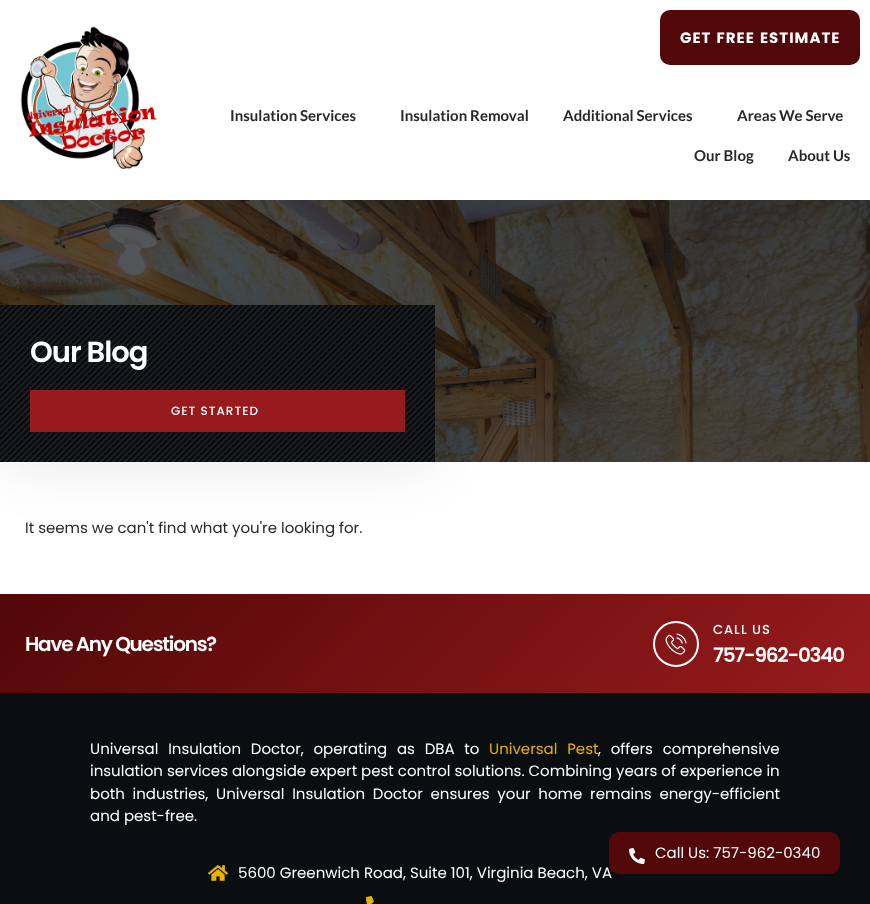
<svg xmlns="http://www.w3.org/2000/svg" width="870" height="904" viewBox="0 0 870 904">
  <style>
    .t1 { font: bold 15px Poppins; letter-spacing: 1px; fill: #fff; }
    .t2 { font: bold 15px Lato; fill: #282828; }
    .t3 { font: 600 29px Poppins; letter-spacing: -1px; fill: #fff; }
    .t4 { font: 500 12px Poppins; letter-spacing: 1px; fill: #fff; }
    .t5 { font: 15px Poppins; fill: #282828; }
    .t6 { font: 600 20px Poppins; letter-spacing: -1.25px; fill: #fff; }
    .t7 { font: 500 13px Poppins; letter-spacing: 1px; fill: #fff; }
    .t8 { font: 15px Poppins; fill: #fff; }
    .t9 { font: 15px Poppins; fill: #e9b102; }
  </style>
  <defs>
    <linearGradient id="g1" gradientUnits="userSpaceOnUse" x1="193" y1="401" x2="677" y2="886"><stop offset="0" stop-color="#520708"/><stop offset="1" stop-color="#971b1d"/></linearGradient>
  </defs>
  <rect width="100%" height="100%" fill="#fff"/>
  <image x="20" y="26" width="137" height="144" href="images/1.png"/>
  <rect x="660" y="10" width="200" height="55" rx="10" fill="#520708"/>
  <text x="680" y="43" word-spacing="1" class="t1">GET FREE ESTIMATE</text>
  <text x="230" y="121" class="t2">Insulation Services</text>
  <text x="400" y="121" class="t2">Insulation Removal</text>
  <text x="563" y="121" class="t2">Additional Services</text>
  <text x="737" y="121" class="t2">Areas We Serve</text>
  <text x="694" y="161" class="t2">Our Blog</text>
  <text x="788" y="161" class="t2">About Us</text>
  <image x="0" y="200" width="870" height="262" href="images/2.png"/>
  <rect x="0" y="305" width="435" height="157" fill="#0000001a" filter="blur(30px)"/>
  <rect x="0" y="305" width="435" height="157" fill="#0b0e11"/>
  <image x="0" y="305" width="435" height="157" href="images/3.png"/>
  <rect x="0" y="305" width="435" height="157" fill="#0b0e11cc"/>
  <text x="30" y="362" class="t3">Our Blog</text>
  <rect x="30" y="390" width="375" height="42" fill="#971b1d"/>
  <text x="171" y="415" class="t4">GET STARTED</text>
  <text x="25" y="533" class="t5">It seems we can't find what you're looking for.</text>
  <rect x="0" y="594" width="870" height="99" fill="url(#g1)"/>
  <text x="25" y="651" class="t6">Have Any Questions?</text>
  <circle cx="676" cy="644" r="22" fill="none" stroke="#fff" stroke-width="2"/>
  <image x="665" y="633" width="22" height="22" href="images/4.png"/>
  <text x="713" y="634" class="t7">CALL US</text>
  <text x="713" y="662" class="t6">757-962-0340</text>
  <rect x="0" y="693" width="870" height="211" fill="#0b0e11"/>
  <text x="90" y="754" word-spacing="5.75" class="t8">Universal Insulation Doctor, operating as DBA to</text>
  <text x="489" y="754" word-spacing="5.75" class="t9">Universal Pest</text>
  <text x="598" y="754" word-spacing="5.75" class="t8">, offers comprehensive</text>
  <text x="90" y="776" class="t8">insulation services alongside expert pest control solutions. Combining years of experience in</text>
  <text x="90" y="799" word-spacing="3.75" class="t8">both industries, Universal Insulation Doctor ensures your home remains energy-efficient</text>
  <text x="90" y="821" class="t8">and pest-free.</text>
  <image x="208" y="865" width="20" height="16" href="images/5.png"/>
  <text x="238" y="878" class="t8">5600 Greenwich Road, Suite 101, Virginia Beach, VA</text>
  <image x="366" y="896" width="8" height="8" href="images/6.png"/>
  <rect x="609" y="832" width="231" height="42" rx="10" fill="#520708"/>
  <image x="629" y="848" width="16" height="16" href="images/7.png"/>
  <text x="655" y="858" class="t8">Call Us: 757-962-0340</text>
</svg>
